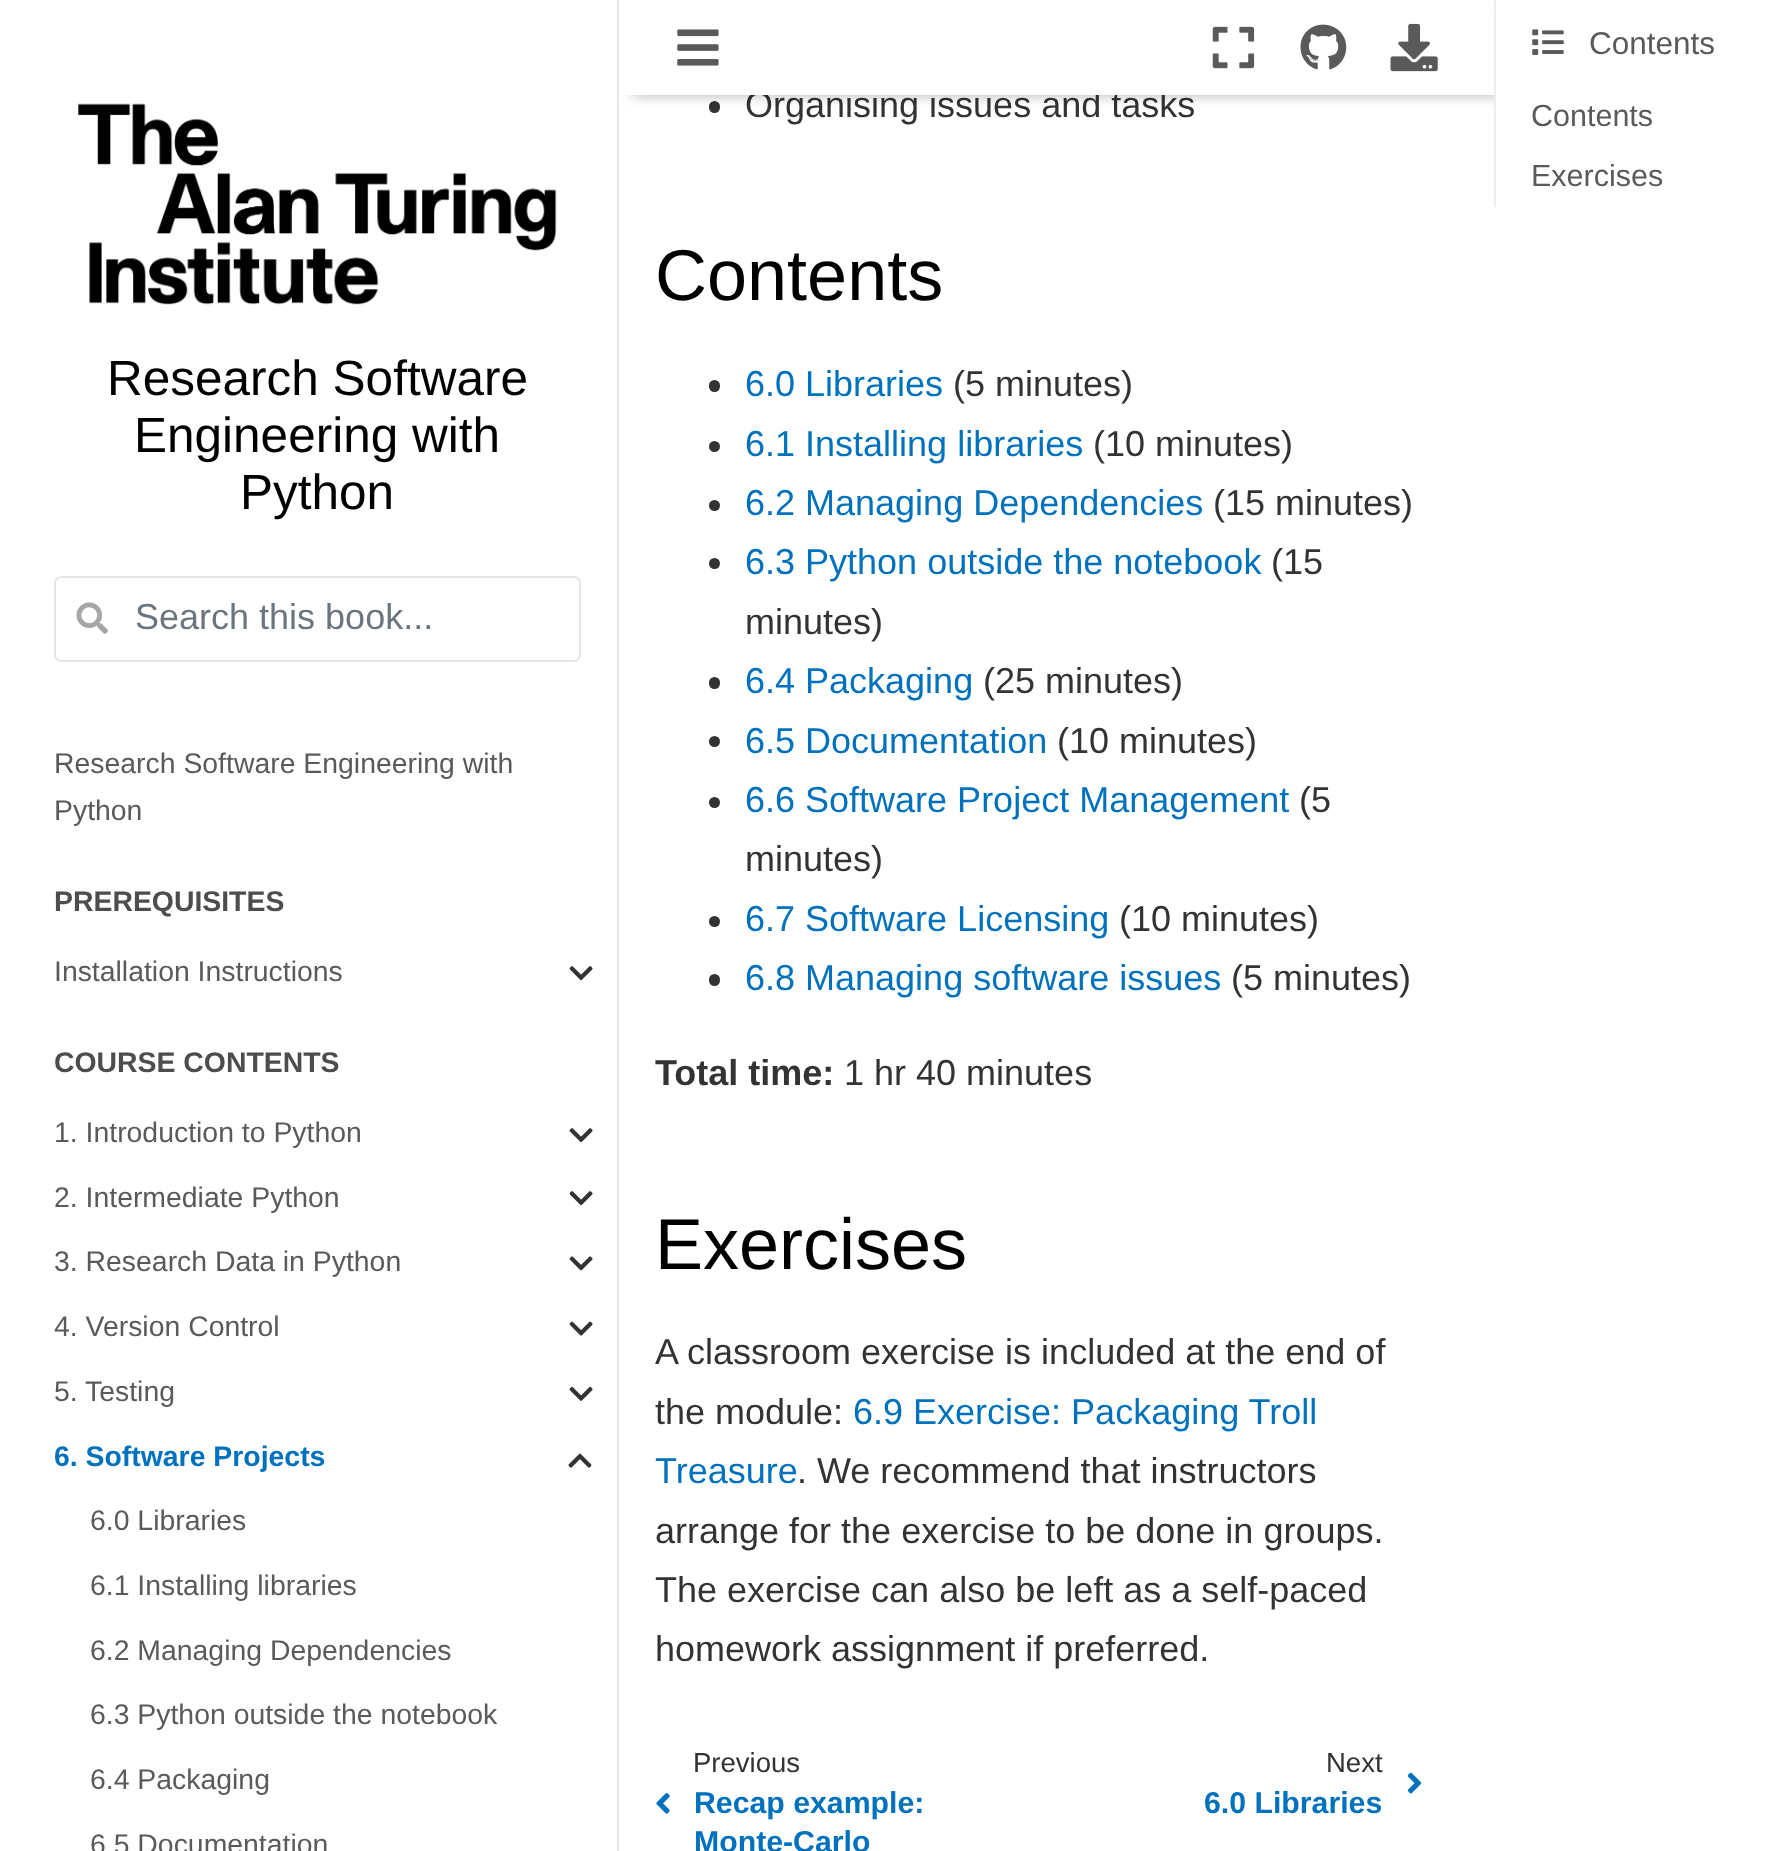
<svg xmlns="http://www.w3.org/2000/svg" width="1784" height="1851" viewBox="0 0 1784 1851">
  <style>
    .t1 { font: 49.5px Liberation Sans; fill: #000; }
    .t2 { font: 36px Liberation Sans; fill: #6c757d; }
    .t3 { font: 28.4px Liberation Sans; fill: #5a5a5a; }
    .t4 { font: bold 28.4px Liberation Sans; fill: #4d4d4d; }
    .t5 { font: bold 28.4px Liberation Sans; fill: #0071bc; }
    .t6 { font: 36px Liberation Sans; fill: #333; }
    .t7 { font: 72px Liberation Sans; fill: #000; }
    .t8 { font: 36px Liberation Sans; fill: #0071bc; }
    .t9 { font: bold 36px Liberation Sans; fill: #333; }
    .t10 { font: 27.5px Liberation Sans; fill: #333; }
    .t11 { font: bold 30.25px Liberation Sans; fill: #0071bc; }
    .t12 { font: 31.5px Liberation Sans; fill: #5a5a5a; }
    .t13 { font: 30.5px Liberation Sans; fill: #5a5a5a; }
  </style>
  <rect width="100%" height="100%" fill="#fff"/>
  <rect x="617" y="0" width="2" height="1851" fill="#e6e6e6"/>
  <image x="78" y="103" width="479" height="202" href="images/1.png"/>
  <text x="107" y="395" class="t1">Research Software</text>
  <text x="134" y="452" class="t1">Engineering with</text>
  <text x="240" y="509" class="t1">Python</text>
  <rect x="55" y="577" width="525" height="84" rx="6" fill="none" stroke="#e5e5e5" stroke-width="2"/>
  <image x="76" y="602" width="32" height="32" href="images/2.png"/>
  <text x="135" y="629" class="t2">Search this book...</text>
  <text x="54" y="773" class="t3">Research Software Engineering with</text>
  <text x="54" y="820" class="t3">Python</text>
  <text x="54" y="911" class="t4">PREREQUISITES</text>
  <text x="54" y="981" class="t3">Installation Instructions</text>
  <image x="569" y="966" width="24" height="15" href="images/3.png"/>
  <text x="54" y="1072" class="t4">COURSE CONTENTS</text>
  <text x="54" y="1142" class="t3">1. Introduction to Python</text>
  <image x="569" y="1128" width="24" height="15" href="images/3.png"/>
  <text x="54" y="1207" class="t3">2. Intermediate Python</text>
  <image x="569" y="1191" width="24" height="15" href="images/3.png"/>
  <text x="54" y="1271" class="t3">3. Research Data in Python</text>
  <image x="569" y="1256" width="24" height="15" href="images/4.png"/>
  <text x="54" y="1336" class="t3">4. Version Control</text>
  <image x="569" y="1321" width="24" height="15" href="images/5.png"/>
  <text x="54" y="1401" class="t3">5. Testing</text>
  <image x="569" y="1386" width="24" height="15" href="images/6.png"/>
  <text x="54" y="1466" class="t5">6. Software Projects</text>
  <image x="568" y="1453" width="24" height="15" href="images/7.png"/>
  <text x="90" y="1530" class="t3">6.0 Libraries</text>
  <text x="90" y="1595" class="t3">6.1 Installing libraries</text>
  <text x="90" y="1660" class="t3">6.2 Managing Dependencies</text>
  <text x="90" y="1724" class="t3">6.3 Python outside the notebook</text>
  <text x="90" y="1789" class="t3">6.4 Packaging</text>
  <text x="90" y="1854" class="t3">6.5 Documentation</text>
  <rect x="709" y="101" width="11" height="12" rx="5.5" fill="#333"/>
  <text x="745" y="117" class="t6">Organising issues and tasks</text>
  <text x="655" y="300" class="t7">Contents</text>
  <rect x="709" y="380" width="11" height="12" rx="5.5" fill="#333"/>
  <text x="745" y="396" class="t8">6.0 Libraries</text>
  <text x="953" y="396" class="t6">(5 minutes)</text>
  <circle cx="714.5" cy="446.5" r="5.5" fill="#333"/>
  <text x="745" y="456" class="t8">6.1 Installing libraries</text>
  <text x="1093" y="456" class="t6">(10 minutes)</text>
  <circle cx="714.5" cy="505.5" r="5.5" fill="#333"/>
  <text x="745" y="515" class="t8">6.2 Managing Dependencies</text>
  <text x="1213" y="515" class="t6">(15 minutes)</text>
  <circle cx="714.5" cy="563.5" r="5.5" fill="#333"/>
  <text x="745" y="574" class="t8">6.3 Python outside the notebook</text>
  <text x="1271" y="574" class="t6">(15</text>
  <text x="745" y="634" class="t6">minutes)</text>
  <rect x="709" y="677" width="11" height="12" rx="5.5" fill="#333"/>
  <text x="745" y="693" class="t8">6.4 Packaging</text>
  <text x="983" y="693" class="t6">(25 minutes)</text>
  <circle cx="714.5" cy="741.5" r="5.5" fill="#333"/>
  <text x="745" y="753" class="t8">6.5 Documentation</text>
  <text x="1057" y="753" class="t6">(10 minutes)</text>
  <circle cx="714.5" cy="802.5" r="5.5" fill="#333"/>
  <text x="745" y="812" class="t8">6.6 Software Project Management</text>
  <text x="1299" y="812" class="t6">(5</text>
  <text x="745" y="871" class="t6">minutes)</text>
  <circle cx="714.5" cy="921.5" r="5.5" fill="#333"/>
  <text x="745" y="931" class="t8">6.7 Software Licensing</text>
  <text x="1119" y="931" class="t6">(10 minutes)</text>
  <rect x="709" y="974" width="11" height="12" rx="5.5" fill="#333"/>
  <text x="745" y="990" class="t8">6.8 Managing software issues</text>
  <text x="1231" y="990" class="t6">(5 minutes)</text>
  <text x="655" y="1085" class="t9">Total time:</text>
  <text x="844" y="1085" class="t6">1 hr 40 minutes</text>
  <text x="655" y="1269" class="t7">Exercises</text>
  <text x="655" y="1364" class="t6">A classroom exercise is included at the end of</text>
  <text x="655" y="1424" class="t6">the module:</text>
  <text x="853" y="1424" class="t8">6.9 Exercise: Packaging Troll</text>
  <text x="655" y="1483" class="t8">Treasure</text>
  <text x="797" y="1483" class="t6">. We recommend that instructors</text>
  <text x="655" y="1543" class="t6">arrange for the exercise to be done in groups.</text>
  <text x="655" y="1602" class="t6">The exercise can also be left as a self-paced</text>
  <text x="655" y="1661" class="t6">homework assignment if preferred.</text>
  <image x="656" y="1793" width="14" height="21" href="images/8.png"/>
  <text x="693" y="1772" class="t10">Previous</text>
  <text x="694" y="1813" class="t11">Recap example:</text>
  <text x="694" y="1852" class="t11">Monte-Carlo</text>
  <text x="1326" y="1772" class="t10">Next</text>
  <text x="1204" y="1813" class="t11">6.0 Libraries</text>
  <image x="1407" y="1772" width="15" height="22" href="images/9.png"/>
  <rect x="632" y="27" width="1139" height="68" fill="#0000004d" filter="blur(7px)"/>
  <rect x="619" y="14" width="1165" height="81" fill="#fff"/>
  <image x="677" y="29" width="42" height="37" href="images/10.png"/>
  <image x="1212" y="26" width="43" height="43" href="images/11.png"/>
  <image x="1300" y="24" width="47" height="46" href="images/12.png"/>
  <image x="1390" y="23" width="48" height="49" href="images/13.png"/>
  <rect x="1494" y="0" width="2" height="207" fill="#eee"/>
  <image x="1532" y="29" width="32" height="26" href="images/14.png"/>
  <text x="1589" y="54" class="t12">Contents</text>
  <rect x="1496" y="95" width="285" height="13" fill="#fff"/>
  <text x="1531" y="126" class="t13">Contents</text>
  <text x="1531" y="186" class="t13">Exercises</text>
</svg>
